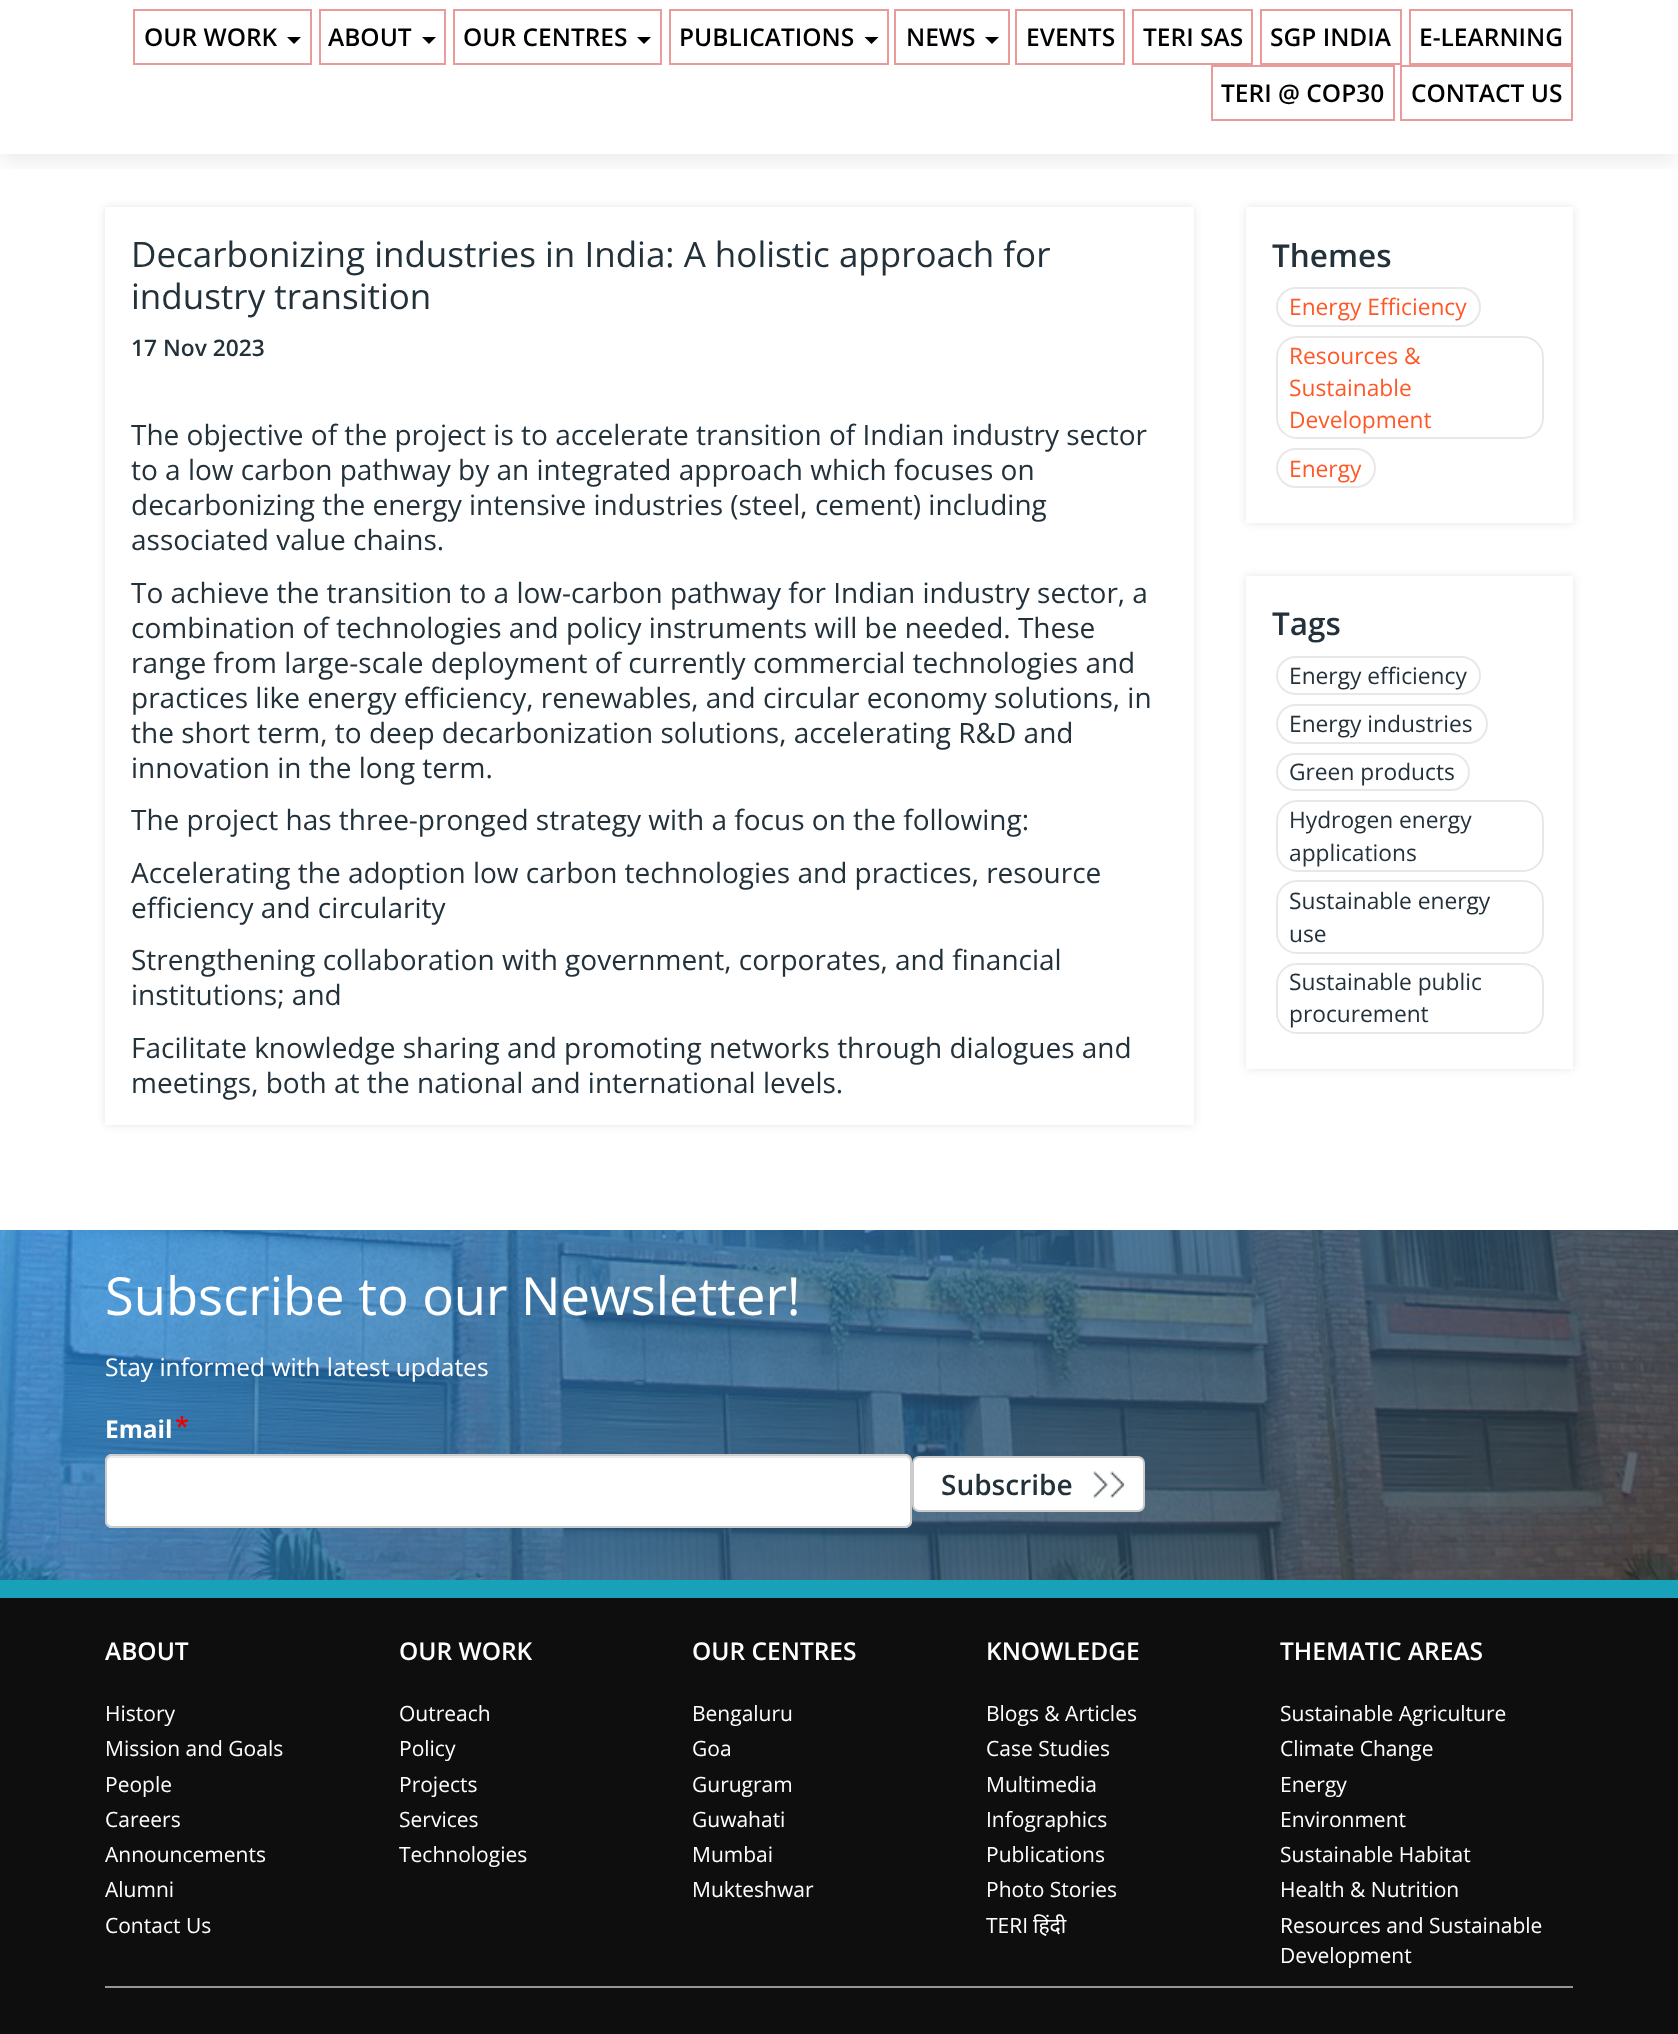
<svg xmlns="http://www.w3.org/2000/svg" width="1678" height="2034" viewBox="0 0 1678 2034">
  <style>
    .t1 { font: 600 24.5px Open Sans; fill: #000; }
    .t2 { font: 35px Open Sans; fill: #23313a; }
    .t3 { font: 600 22.75px Open Sans; fill: #23313a; }
    .t4 { font: 28px Open Sans; fill: #23313a; }
    .t5 { font: 600 31.5px Open Sans; fill: #23313a; }
    .t6 { font: 22.75px Open Sans; fill: #ff5827; }
    .t7 { font: 22.75px Open Sans; fill: #23313a; }
    .t8 { font: 52.5px Open Sans; fill: #fff; }
    .t9 { font: 24.5px Open Sans; fill: #fff; }
    .t10 { font: bold 24.5px Open Sans; fill: #fff; }
    .t11 { font: 600 28px Open Sans; fill: #23313a; }
    .t12 { font: 600 24.5px Open Sans; fill: #fff; }
    .t13 { font: 21px Open Sans; fill: #fff; }
    .t14 { font: 21px Noto Sans; fill: #fff; }
  </style>
  <defs>
    <clipPath id="clip1"><rect x="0" y="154" width="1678" height="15"/></clipPath>
    <clipPath id="clip2"><path d="M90 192H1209V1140H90ZM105 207H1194V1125H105Z" clip-rule="evenodd"/></clipPath>
    <clipPath id="clip3"><path d="M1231 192H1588V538H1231ZM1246 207H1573V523H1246Z" clip-rule="evenodd"/></clipPath>
    <clipPath id="clip4"><path d="M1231 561H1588V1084H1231ZM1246 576H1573V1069H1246Z" clip-rule="evenodd"/></clipPath>
  </defs>
  <rect width="100%" height="100%" fill="#fff"/>
  <g clip-path="url(#clip1)">
    <rect x="0" y="-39" width="1678" height="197" fill="#0000001a" filter="blur(13px)"/>
  </g>
  <rect x="134" y="10" width="177" height="54" fill="none" stroke="#e99b9b" stroke-width="2"/>
  <text x="144" y="46" class="t1">OUR WORK</text>
  <path d="M287 37H301L294 44Z" fill="#000"/>
  <rect x="320" y="10" width="125" height="54" fill="none" stroke="#e99b9b" stroke-width="2"/>
  <text x="328" y="46" class="t1">ABOUT</text>
  <path d="M422 37H436L429 44Z" fill="#000"/>
  <rect x="454" y="10" width="207" height="54" fill="none" stroke="#e99b9b" stroke-width="2"/>
  <text x="463" y="46" class="t1">OUR CENTRES</text>
  <path d="M637 37H651L644 44Z" fill="#000"/>
  <rect x="670" y="10" width="218" height="54" fill="none" stroke="#e99b9b" stroke-width="2"/>
  <text x="679" y="46" class="t1">PUBLICATIONS</text>
  <path d="M864.5 37H878.5L871.5 44Z" fill="#000"/>
  <rect x="895" y="10" width="114" height="54" fill="none" stroke="#e99b9b" stroke-width="2"/>
  <text x="906" y="46" class="t1">NEWS</text>
  <path d="M985 37H999L992 44Z" fill="#000"/>
  <rect x="1016" y="10" width="108" height="54" fill="none" stroke="#e99b9b" stroke-width="2"/>
  <text x="1026" y="46" class="t1">EVENTS</text>
  <rect x="1133" y="10" width="119" height="54" fill="none" stroke="#e99b9b" stroke-width="2"/>
  <text x="1143" y="46" class="t1">TERI SAS</text>
  <rect x="1261" y="10" width="140" height="54" fill="none" stroke="#e99b9b" stroke-width="2"/>
  <text x="1270" y="46" class="t1">SGP INDIA</text>
  <rect x="1410" y="10" width="162" height="54" fill="none" stroke="#e99b9b" stroke-width="2"/>
  <text x="1419" y="46" class="t1">E-LEARNING</text>
  <rect x="1212" y="66" width="182" height="54" fill="none" stroke="#e99b9b" stroke-width="2"/>
  <text x="1221" y="102" class="t1">TERI @ COP30</text>
  <rect x="1401" y="66" width="171" height="54" fill="none" stroke="#e99b9b" stroke-width="2"/>
  <text x="1411" y="102" class="t1">CONTACT US</text>
  <g clip-path="url(#clip2)">
    <rect x="105" y="207" width="1089" height="918" fill="#0000001a" filter="blur(4.5px)"/>
  </g>
  <text x="131" y="267" class="t2">Decarbonizing industries in India: A holistic approach for</text>
  <text x="131" y="309" class="t2">industry transition</text>
  <text x="131" y="356" class="t3">17 Nov 2023</text>
  <text x="131" y="445" class="t4">The objective of the project is to accelerate transition of Indian industry sector</text>
  <text x="131" y="480" class="t4">to a low carbon pathway by an integrated approach which focuses on</text>
  <text x="131" y="515" class="t4">decarbonizing the energy intensive industries (steel, cement) including</text>
  <text x="131" y="550" class="t4">associated value chains.</text>
  <text x="131" y="603" class="t4">To achieve the transition to a low-carbon pathway for Indian industry sector, a</text>
  <text x="131" y="638" class="t4">combination of technologies and policy instruments will be needed. These</text>
  <text x="131" y="673" class="t4">range from large-scale deployment of currently commercial technologies and</text>
  <text x="131" y="708" class="t4">practices like energy efficiency, renewables, and circular economy solutions, in</text>
  <text x="131" y="743" class="t4">the short term, to deep decarbonization solutions, accelerating R&amp;D and</text>
  <text x="131" y="778" class="t4">innovation in the long term.</text>
  <text x="131" y="830" class="t4">The project has three-pronged strategy with a focus on the following:</text>
  <text x="131" y="883" class="t4">Accelerating the adoption low carbon technologies and practices, resource</text>
  <text x="131" y="918" class="t4">efficiency and circularity</text>
  <text x="131" y="970" class="t4">Strengthening collaboration with government, corporates, and financial</text>
  <text x="131" y="1005" class="t4">institutions; and</text>
  <text x="131" y="1058" class="t4">Facilitate knowledge sharing and promoting networks through dialogues and</text>
  <text x="131" y="1093" class="t4">meetings, both at the national and international levels.</text>
  <g clip-path="url(#clip3)">
    <rect x="1246" y="207" width="327" height="316" fill="#0000001a" filter="blur(4.5px)"/>
  </g>
  <text x="1272" y="267" class="t5">Themes</text>
  <rect x="1277" y="288" width="203" height="38" rx="19" fill="none" stroke="#e8e8e8" stroke-width="2"/>
  <text x="1289" y="315" class="t6">Energy Efficiency</text>
  <rect x="1277" y="337" width="266" height="101" rx="20" fill="none" stroke="#e8e8e8" stroke-width="2"/>
  <text x="1289" y="364" class="t6">Resources &amp;</text>
  <text x="1289" y="396" class="t6">Sustainable</text>
  <text x="1289" y="428" class="t6">Development</text>
  <rect x="1277" y="449" width="98" height="38" rx="19" fill="none" stroke="#e8e8e8" stroke-width="2"/>
  <text x="1289" y="477" class="t6">Energy</text>
  <g clip-path="url(#clip4)">
    <rect x="1246" y="576" width="327" height="493" fill="#0000001a" filter="blur(4.5px)"/>
  </g>
  <text x="1272" y="635" class="t5">Tags</text>
  <rect x="1277" y="657" width="203" height="37" rx="18.5" fill="none" stroke="#e8e8e8" stroke-width="2"/>
  <text x="1289" y="684" class="t7">Energy efficiency</text>
  <rect x="1277" y="705" width="210" height="38" rx="19" fill="none" stroke="#e8e8e8" stroke-width="2"/>
  <text x="1289" y="732" class="t7">Energy industries</text>
  <rect x="1277" y="754" width="192" height="36" rx="18" fill="none" stroke="#e8e8e8" stroke-width="2"/>
  <text x="1289" y="780" class="t7">Green products</text>
  <rect x="1277" y="801" width="266" height="70" rx="20" fill="none" stroke="#e8e8e8" stroke-width="2"/>
  <text x="1289" y="828" class="t7">Hydrogen energy</text>
  <text x="1289" y="861" class="t7">applications</text>
  <rect x="1277" y="881" width="266" height="72" rx="20" fill="none" stroke="#e8e8e8" stroke-width="2"/>
  <text x="1289" y="909" class="t7">Sustainable energy</text>
  <text x="1289" y="942" class="t7">use</text>
  <rect x="1277" y="964" width="266" height="69" rx="20" fill="none" stroke="#e8e8e8" stroke-width="2"/>
  <text x="1289" y="990" class="t7">Sustainable public</text>
  <text x="1289" y="1022" class="t7">procurement</text>
  <rect x="0" y="1580" width="1678" height="18" fill="#17a2b9"/>
  <image x="0" y="1230" width="1678" height="350" href="images/1.png"/>
  <text x="105" y="1315" class="t8">Subscribe to our Newsletter!</text>
  <text x="105" y="1376" class="t9">Stay informed with latest updates</text>
  <text x="105" y="1438" class="t10">Email</text>
  <image x="175" y="1416" width="14" height="12" href="images/2.png"/>
  <rect x="105" y="1454" width="807" height="74" rx="7" fill="#fff"/>
  <path d="M112 1458H905C908 1458 910 1460 910 1463C910 1460 909 1456 905 1456H112C108 1456 107 1460 107 1463C107 1460 109 1458 112 1458Z" fill="#ececec"/>
  <rect x="106" y="1455" width="805" height="72" rx="6" fill="none" stroke="#ccc" stroke-width="2"/>
  <rect x="913" y="1457" width="231" height="54" rx="6" fill="#fff" stroke="#ccc" stroke-width="2"/>
  <text x="941" y="1495" class="t11">Subscribe</text>
  <image x="1093" y="1471" width="32" height="27" href="images/3.png"/>
  <rect x="0" y="1598" width="1678" height="436" fill="#0e0e0e"/>
  <text x="105" y="1660" class="t12">ABOUT</text>
  <text x="105" y="1721" class="t13">History</text>
  <text x="105" y="1756" class="t13">Mission and Goals</text>
  <text x="105" y="1792" class="t13">People</text>
  <text x="105" y="1827" class="t13">Careers</text>
  <text x="105" y="1862" class="t13">Announcements</text>
  <text x="105" y="1897" class="t13">Alumni</text>
  <text x="105" y="1933" class="t13">Contact Us</text>
  <text x="399" y="1660" class="t12">OUR WORK</text>
  <text x="399" y="1721" class="t13">Outreach</text>
  <text x="399" y="1756" class="t13">Policy</text>
  <text x="399" y="1792" class="t13">Projects</text>
  <text x="399" y="1827" class="t13">Services</text>
  <text x="399" y="1862" class="t13">Technologies</text>
  <text x="692" y="1660" class="t12">OUR CENTRES</text>
  <text x="692" y="1721" class="t13">Bengaluru</text>
  <text x="692" y="1756" class="t13">Goa</text>
  <text x="692" y="1792" class="t13">Gurugram</text>
  <text x="692" y="1827" class="t13">Guwahati</text>
  <text x="692" y="1862" class="t13">Mumbai</text>
  <text x="692" y="1897" class="t13">Mukteshwar</text>
  <text x="986" y="1660" class="t12">KNOWLEDGE</text>
  <text x="986" y="1721" class="t13">Blogs &amp; Articles</text>
  <text x="986" y="1756" class="t13">Case Studies</text>
  <text x="986" y="1792" class="t13">Multimedia</text>
  <text x="986" y="1827" class="t13">Infographics</text>
  <text x="986" y="1862" class="t13">Publications</text>
  <text x="986" y="1897" class="t13">Photo Stories</text>
  <text x="986" y="1933" class="t13">TERI</text>
  <text x="1033" y="1933" class="t14">हिंदी</text>
  <text x="1280" y="1660" class="t12">THEMATIC AREAS</text>
  <text x="1280" y="1721" class="t13">Sustainable Agriculture</text>
  <text x="1280" y="1756" class="t13">Climate Change</text>
  <text x="1280" y="1792" class="t13">Energy</text>
  <text x="1280" y="1827" class="t13">Environment</text>
  <text x="1280" y="1862" class="t13">Sustainable Habitat</text>
  <text x="1280" y="1897" class="t13">Health &amp; Nutrition</text>
  <text x="1280" y="1933" class="t13">Resources and Sustainable</text>
  <text x="1280" y="1963" class="t13">Development</text>
  <rect x="105" y="1986" width="1468" height="2" fill="#959595"/>
</svg>
